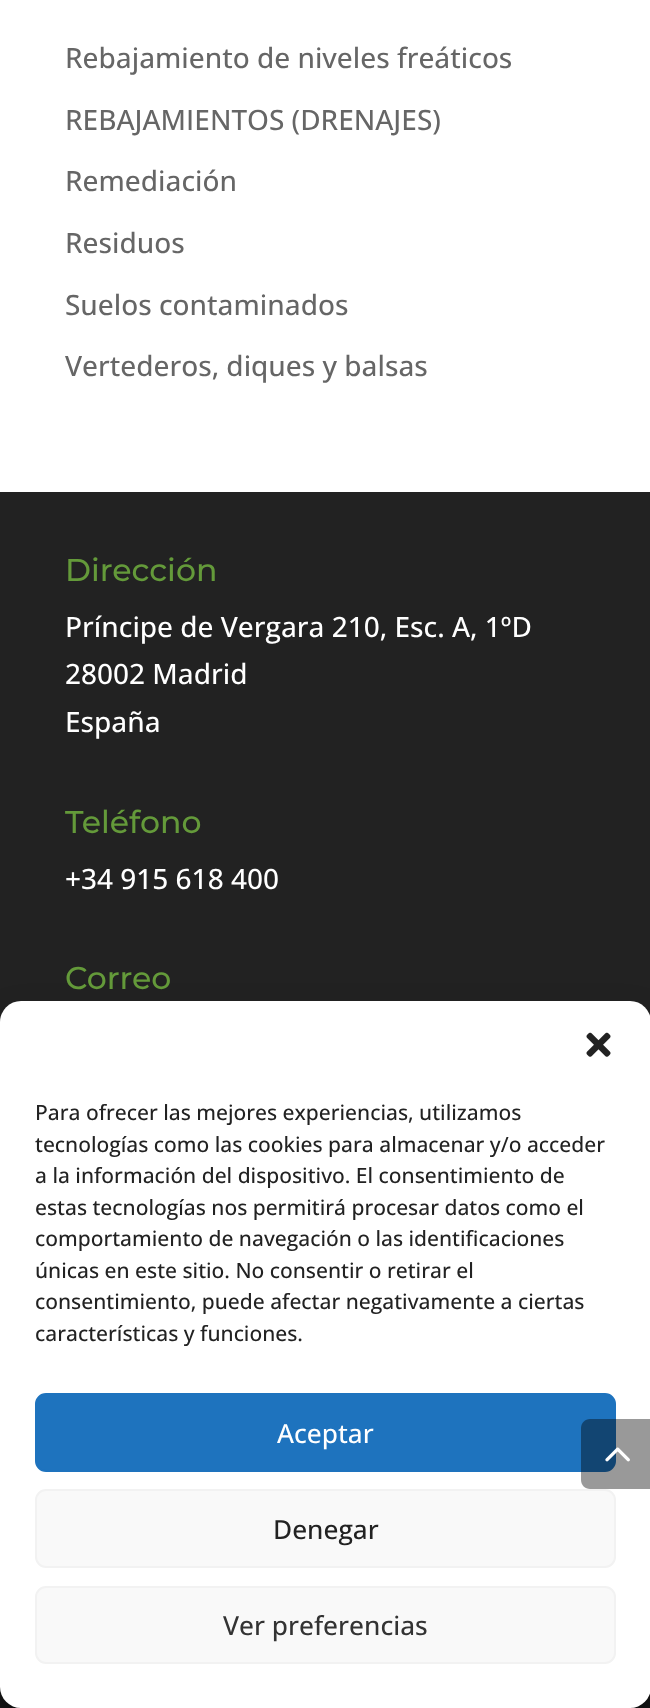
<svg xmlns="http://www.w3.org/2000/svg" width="650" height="1708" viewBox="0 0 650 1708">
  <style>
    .t1 { font: 500 28px Open Sans; fill: #666; }
    .t2 { font: 500 31.5px Montserrat; fill: #649a3a; }
    .t3 { font: 500 28px Open Sans; fill: #fff; }
    .t4 { font: 500 21px Open Sans; fill: #222; }
    .t5 { font: 500 26.25px Open Sans; fill: #fff; }
    .t6 { font: 500 26.25px Open Sans; fill: #222; }
    .t7 { font: 500 26.25px Open Sans; fill: #333; }
  </style>
  <rect width="100%" height="100%" fill="#fff"/>
  <text x="65" y="68" class="t1">Rebajamiento de niveles freáticos</text>
  <text x="65" y="130" class="t1">REBAJAMIENTOS (DRENAJES)</text>
  <text x="65" y="191" class="t1">Remediación</text>
  <text x="65" y="253" class="t1">Residuos</text>
  <text x="65" y="315" class="t1">Suelos contaminados</text>
  <text x="65" y="376" class="t1">Vertederos, diques y balsas</text>
  <rect x="0" y="492" width="650" height="530" fill="#222"/>
  <text x="65" y="581" class="t2">Dirección</text>
  <text x="65" y="637" class="t3">Príncipe de Vergara 210, Esc. A, 1ºD</text>
  <text x="65" y="684" class="t3">28002 Madrid</text>
  <text x="65" y="732" class="t3">España</text>
  <text x="65" y="833" class="t2">Teléfono</text>
  <text x="65" y="889" class="t3">+34 915 618 400</text>
  <text x="65" y="989" class="t2">Correo</text>
  <rect x="0" y="1687" width="650" height="21" fill="#171717"/>
  <rect x="0" y="1012" width="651" height="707" rx="21" fill="#0000003b" filter="blur(5px)"/>
  <rect x="0" y="1019" width="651" height="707" rx="21" fill="#00000030" filter="blur(17.5px)"/>
  <rect x="0" y="1001" width="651" height="707" rx="21" fill="#fff"/>
  <rect x="36" y="1394" width="579" height="77" rx="10" fill="#1e73be" stroke="#1e73be" stroke-width="2"/>
  <path d="M590 1419H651V1489H590C585 1489 581 1485 581 1480V1428C581 1423 585 1419 590 1419Z" fill="#00000066"/>
  <image x="605" y="1447" width="25" height="15" href="images/1.png"/>
  <image x="586" y="1032" width="25" height="25" href="images/2.png"/>
  <text x="35" y="1120" class="t4">Para ofrecer las mejores experiencias, utilizamos</text>
  <text x="35" y="1152" class="t4">tecnologías como las cookies para almacenar y/o acceder</text>
  <text x="35" y="1183" class="t4">a la información del dispositivo. El consentimiento de</text>
  <text x="35" y="1215" class="t4">estas tecnologías nos permitirá procesar datos como el</text>
  <text x="35" y="1246" class="t4">comportamiento de navegación o las identificaciones</text>
  <text x="35" y="1278" class="t4">únicas en este sitio. No consentir o retirar el</text>
  <text x="35" y="1309" class="t4">consentimiento, puede afectar negativamente a ciertas</text>
  <text x="35" y="1341" class="t4">características y funciones.</text>
  <text x="277" y="1443" class="t5">Aceptar</text>
  <rect x="36" y="1490" width="579" height="77" rx="10" fill="#f9f9f9" stroke="#f2f2f2" stroke-width="2"/>
  <text x="273" y="1539" class="t6">Denegar</text>
  <rect x="36" y="1587" width="579" height="76" rx="10" fill="#f9f9f9" stroke="#f2f2f2" stroke-width="2"/>
  <text x="223" y="1635" class="t7">Ver preferencias</text>
</svg>
